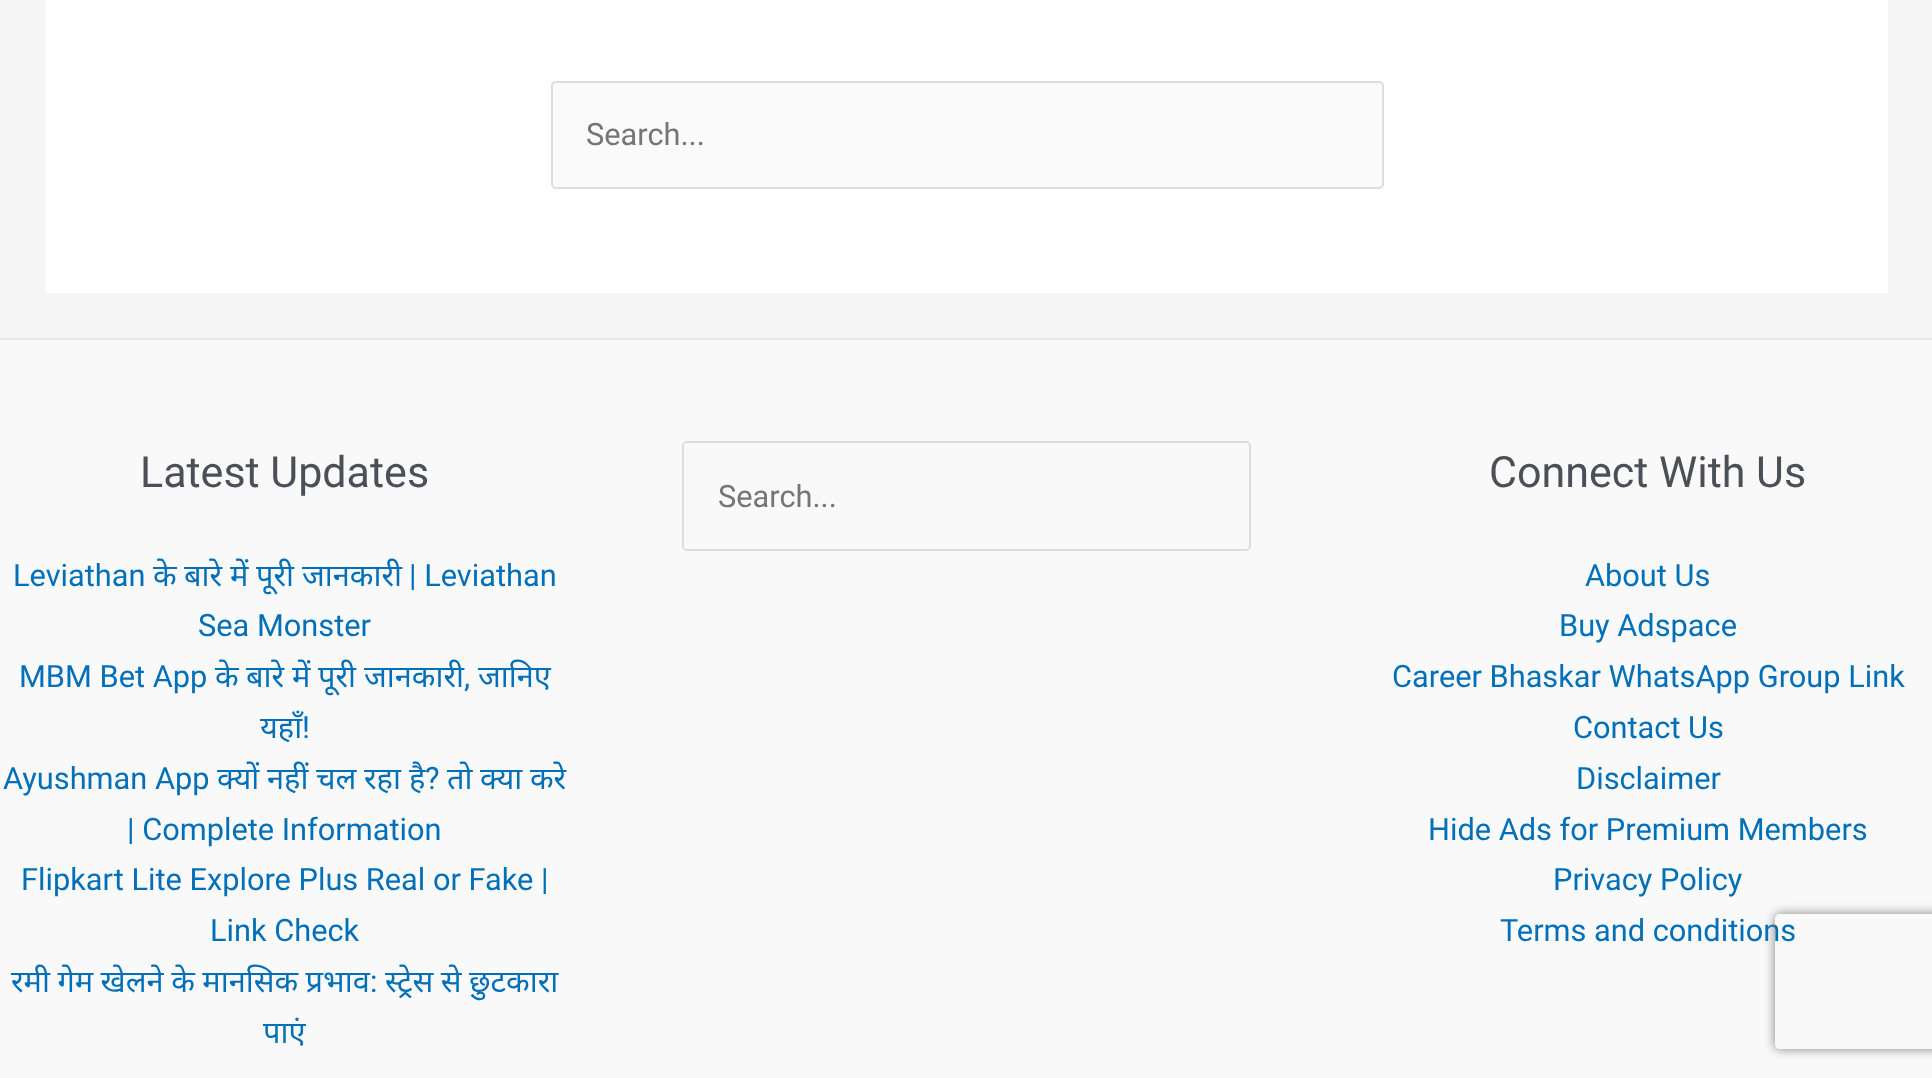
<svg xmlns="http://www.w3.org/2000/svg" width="1932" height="1078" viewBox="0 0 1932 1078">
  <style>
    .t1 { font: 30.75px Roboto; fill: #757575; }
    .t2 { font: 43px Roboto; fill: #4b4f58; }
    .t3 { font: 30.75px Roboto; fill: #0170b9; }
    .t4 { font: 30.75px Noto Sans; fill: #0170b9; }
  </style>
  <defs>
    <clipPath id="clip1"><path d="M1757 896H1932V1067H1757ZM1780 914H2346C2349 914 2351 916 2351 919V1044C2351 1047 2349 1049 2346 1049H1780C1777 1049 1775 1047 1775 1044V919C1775 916 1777 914 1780 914Z" clip-rule="evenodd"/></clipPath>
  </defs>
  <rect width="100%" height="100%" fill="#f5f5f5"/>
  <rect x="45" y="0" width="1843" height="293" fill="#fff"/>
  <rect x="552" y="82" width="831" height="106" rx="4" fill="#fafafa" stroke="#ddd" stroke-width="2"/>
  <text x="586" y="145" class="t1">Search...</text>
  <rect x="0" y="340" width="1932" height="738" fill="#f9f9f9"/>
  <rect x="0" y="338" width="1932" height="2" fill="#e6e6e6"/>
  <text x="140" y="487" class="t2">Latest Updates</text>
  <text x="13" y="586" class="t3">Leviathan</text>
  <text x="153" y="586" class="t4">के</text>
  <text x="184" y="586" class="t4">बारे</text>
  <text x="230" y="586" class="t4">में</text>
  <text x="256" y="586" class="t4">पूरी</text>
  <text x="302" y="586" class="t4">जानकारी</text>
  <text x="409" y="586" class="t3">| Leviathan</text>
  <text x="198" y="636" class="t3">Sea Monster</text>
  <text x="19" y="687" class="t3">MBM Bet App</text>
  <text x="215" y="687" class="t4">के</text>
  <text x="246" y="687" class="t4">बारे</text>
  <text x="292" y="687" class="t4">में</text>
  <text x="318" y="687" class="t4">पूरी</text>
  <text x="364" y="687" class="t4">जानकारी</text>
  <text x="464" y="687" class="t3">,</text>
  <text x="478" y="687" class="t4">जानिए</text>
  <text x="260" y="738" class="t4">यहाँ</text>
  <text x="302" y="738" class="t3">!</text>
  <text x="3" y="789" class="t3">Ayushman App</text>
  <text x="217" y="789" class="t4">क्यों</text>
  <text x="267" y="789" class="t4">नहीं</text>
  <text x="316" y="789" class="t4">चल</text>
  <text x="364" y="789" class="t4">रहा</text>
  <text x="409" y="789" class="t4">है</text>
  <text x="425" y="789" class="t3">?</text>
  <text x="447" y="789" class="t4">तो</text>
  <text x="480" y="789" class="t4">क्या</text>
  <text x="530" y="789" class="t4">करे</text>
  <text x="127" y="840" class="t3">| Complete Information</text>
  <text x="21" y="890" class="t3">Flipkart Lite Explore Plus Real or Fake |</text>
  <text x="210" y="941" class="t3">Link Check</text>
  <text x="11" y="992" word-spacing="-0.5" class="t4">रमी गेम खेलने के मानसिक प्रभाव</text>
  <text x="370" y="992" class="t3">:</text>
  <text x="385" y="992" word-spacing="-0.5" class="t4">स्ट्रेस से छुटकारा</text>
  <text x="263" y="1043" class="t4">पाएं</text>
  <rect x="683" y="442" width="567" height="108" rx="4" fill="none" stroke="#ddd" stroke-width="2"/>
  <text x="718" y="507" class="t1">Search...</text>
  <text x="1489" y="487" class="t2">Connect With Us</text>
  <text x="1585" y="586" class="t3">About Us</text>
  <text x="1559" y="636" class="t3">Buy Adspace</text>
  <text x="1392" y="687" class="t3">Career Bhaskar WhatsApp Group Link</text>
  <text x="1573" y="738" class="t3">Contact Us</text>
  <text x="1576" y="789" class="t3">Disclaimer</text>
  <text x="1428" y="840" class="t3">Hide Ads for Premium Members</text>
  <text x="1553" y="890" class="t3">Privacy Policy</text>
  <text x="1500" y="941" class="t3">Terms and conditions</text>
  <g clip-path="url(#clip1)">
    <rect x="1775" y="914" width="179" height="135" rx="5" fill="#808080" filter="blur(5.5px)"/>
  </g>
</svg>
